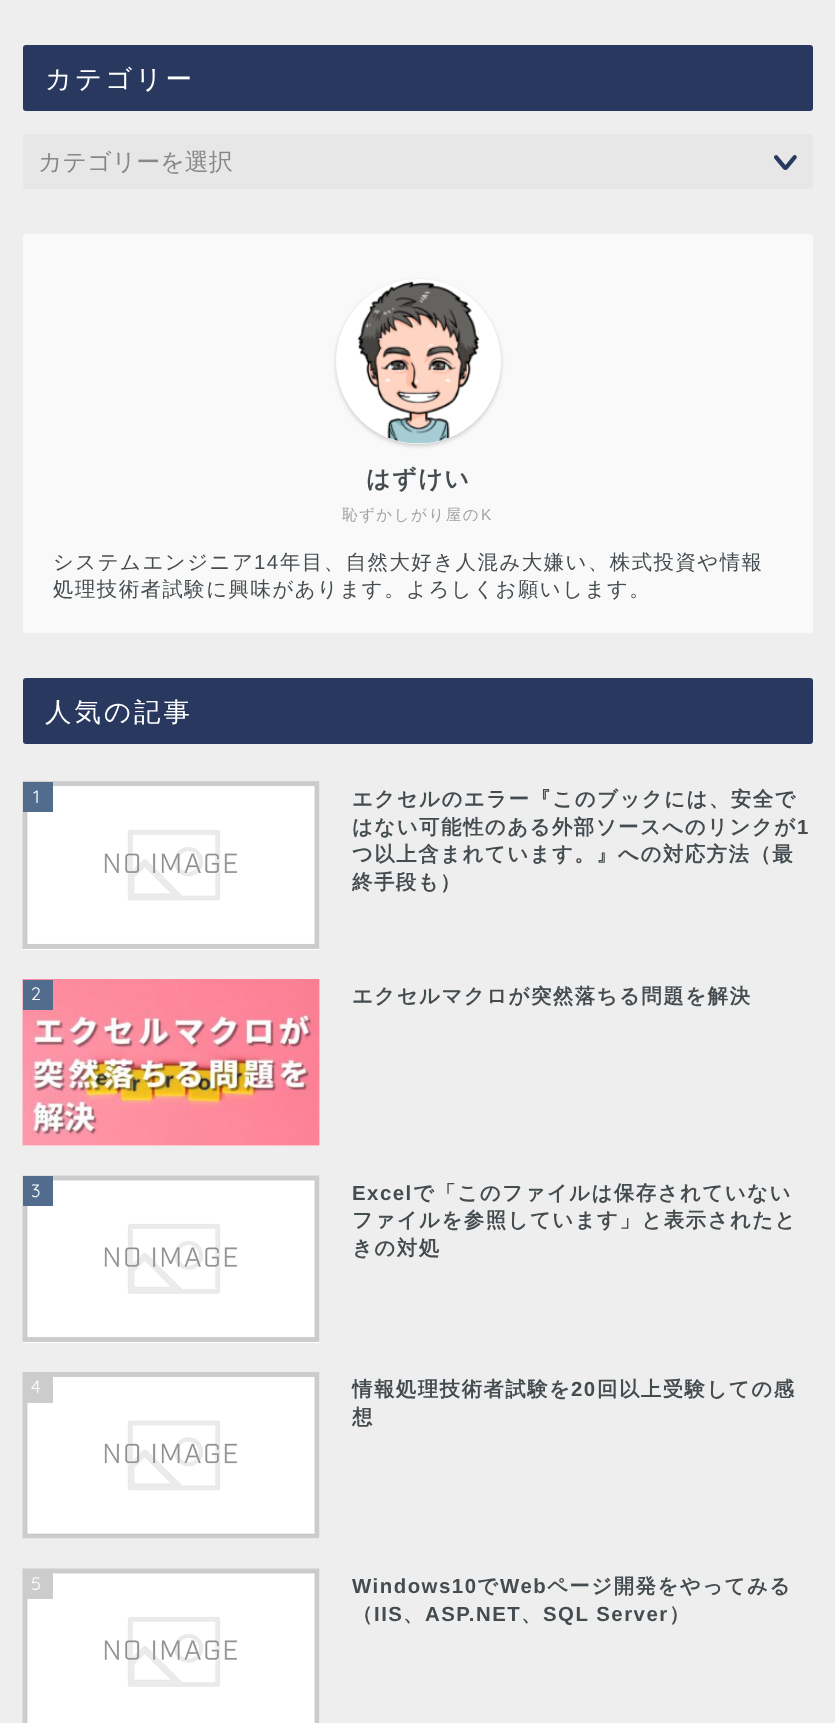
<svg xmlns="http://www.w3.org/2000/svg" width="835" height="1723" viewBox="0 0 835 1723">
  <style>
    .t1 { font: 500 26.5px WenQuanYi Zen Hei; letter-spacing: 3px; fill: #fff; }
    .t2 { font: 500 24px WenQuanYi Zen Hei; fill: #888; }
    .t3 { font: bold 24px WenQuanYi Zen Hei; letter-spacing: 1.5px; fill: #454c50; }
    .t4 { font: 500 15.5px WenQuanYi Zen Hei; letter-spacing: 1.5px; fill: #a2a2a2; }
    .t5 { font: 15.5px Liberation Sans; letter-spacing: 1.5px; fill: #a2a2a2; }
    .t6 { font: 500 20.4px WenQuanYi Zen Hei; letter-spacing: 1.5px; fill: #454c50; }
    .t7 { font: 20.4px Liberation Sans; letter-spacing: 1.5px; fill: #454c50; }
    .t8 { font: 300 18px Quicksand; letter-spacing: 3px; fill: #fff; }
    .t9 { font: bold 20.4px WenQuanYi Zen Hei; letter-spacing: 1.5px; fill: #454c50; }
    .t10 { font: bold 20.4px Liberation Sans; letter-spacing: 1.5px; fill: #454c50; }
  </style>
  <rect width="100%" height="100%" fill="#eee"/>
  <rect x="23" y="45" width="790" height="66" rx="3" fill="#28385e"/>
  <text x="45" y="88" class="t1">カテゴリー</text>
  <rect x="23" y="134" width="790" height="55" rx="3" fill="#e7e7e7"/>
  <text x="38" y="170" class="t2">カテゴリーを選択</text>
  <image x="774" y="155" width="23" height="15" href="images/1.png"/>
  <rect x="23" y="234" width="790" height="399" rx="3" fill="#f9f9f9"/>
  <rect x="336" y="281" width="165" height="165" rx="82.5" fill="#0000002e" filter="blur(2px)"/>
  <circle cx="418.5" cy="361.5" r="82.5" fill="#fff"/>
  <image x="357" y="281" width="123" height="163" href="images/2.png"/>
  <text x="366" y="487" class="t3">はずけい</text>
  <text x="342" y="520" class="t4">恥ずかしがり屋の</text>
  <text x="481" y="520" class="t5">K</text>
  <text x="53" y="569" class="t6">システムエンジニア</text>
  <text x="254" y="569" class="t7">14</text>
  <text x="280" y="569" class="t6">年目、自然大好き人混み大嫌い、株式投資や情報</text>
  <text x="53" y="596" class="t6">処理技術者試験に興味があります。よろしくお願いします。</text>
  <rect x="23" y="678" width="790" height="66" rx="3" fill="#28385e"/>
  <text x="45" y="721" class="t1">人気の記事</text>
  <rect x="23" y="782" width="297" height="168" fill="#fff"/>
  <image x="22" y="781" width="298" height="168" href="images/3.png"/>
  <rect x="23" y="782" width="30" height="30" fill="#516c8d"/>
  <text x="33" y="803" class="t8">1</text>
  <text x="352" y="806" class="t9">エクセルのエラー『このブックには、安全で</text>
  <text x="352" y="834" class="t9">はない可能性のある外部ソースへのリンクが</text>
  <text x="797" y="834" class="t10">1</text>
  <text x="352" y="861" class="t9">つ以上含まれています。』への対応方法（最</text>
  <text x="352" y="889" class="t9">終手段も）</text>
  <rect x="23" y="980" width="297" height="166" fill="#fff"/>
  <image x="22" y="979" width="298" height="167" href="images/4.png"/>
  <rect x="23" y="980" width="30" height="30" fill="#516c8d"/>
  <text x="31" y="1000" class="t8">2</text>
  <text x="352" y="1003" class="t9">エクセルマクロが突然落ちる問題を解決</text>
  <rect x="23" y="1176" width="297" height="167" fill="#fff"/>
  <image x="22" y="1175" width="298" height="167" href="images/5.png"/>
  <rect x="23" y="1176" width="30" height="30" fill="#516c8d"/>
  <text x="31" y="1197" class="t8">3</text>
  <text x="352" y="1200" class="t10">Excel</text>
  <text x="413" y="1200" class="t9">で「このファイルは保存されていない</text>
  <text x="352" y="1227" class="t9">ファイルを参照しています」と表示されたと</text>
  <text x="352" y="1255" class="t9">きの対処</text>
  <rect x="23" y="1373" width="297" height="166" fill="#fff"/>
  <image x="22" y="1372" width="298" height="167" href="images/6.png"/>
  <rect x="26" y="1376" width="27" height="27" fill="#ccc"/>
  <text x="31" y="1393" class="t8">4</text>
  <text x="352" y="1396" class="t9">情報処理技術者試験を</text>
  <text x="571" y="1396" class="t10">20</text>
  <text x="597" y="1396" class="t9">回以上受験しての感</text>
  <text x="352" y="1424" class="t9">想</text>
  <rect x="319" y="1569" width="1" height="154" fill="#fff"/>
  <image x="22" y="1568" width="298" height="155" href="images/7.png"/>
  <rect x="26" y="1572" width="27" height="27" fill="#ccc"/>
  <text x="31" y="1590" class="t8">5</text>
  <text x="352" y="1593" class="t10">Windows10</text>
  <text x="477" y="1593" class="t9">で</text>
  <text x="500" y="1593" class="t10">Web</text>
  <text x="547" y="1593" class="t9">ページ開発をやってみる</text>
  <text x="352" y="1621" class="t9">（</text>
  <text x="374" y="1621" class="t10">IIS</text>
  <text x="403" y="1621" class="t9">、</text>
  <text x="425" y="1621" class="t10">ASP.NET</text>
  <text x="521" y="1621" class="t9">、</text>
  <text x="543" y="1621" class="t10">SQL Server</text>
  <text x="669" y="1621" class="t9">）</text>
</svg>
